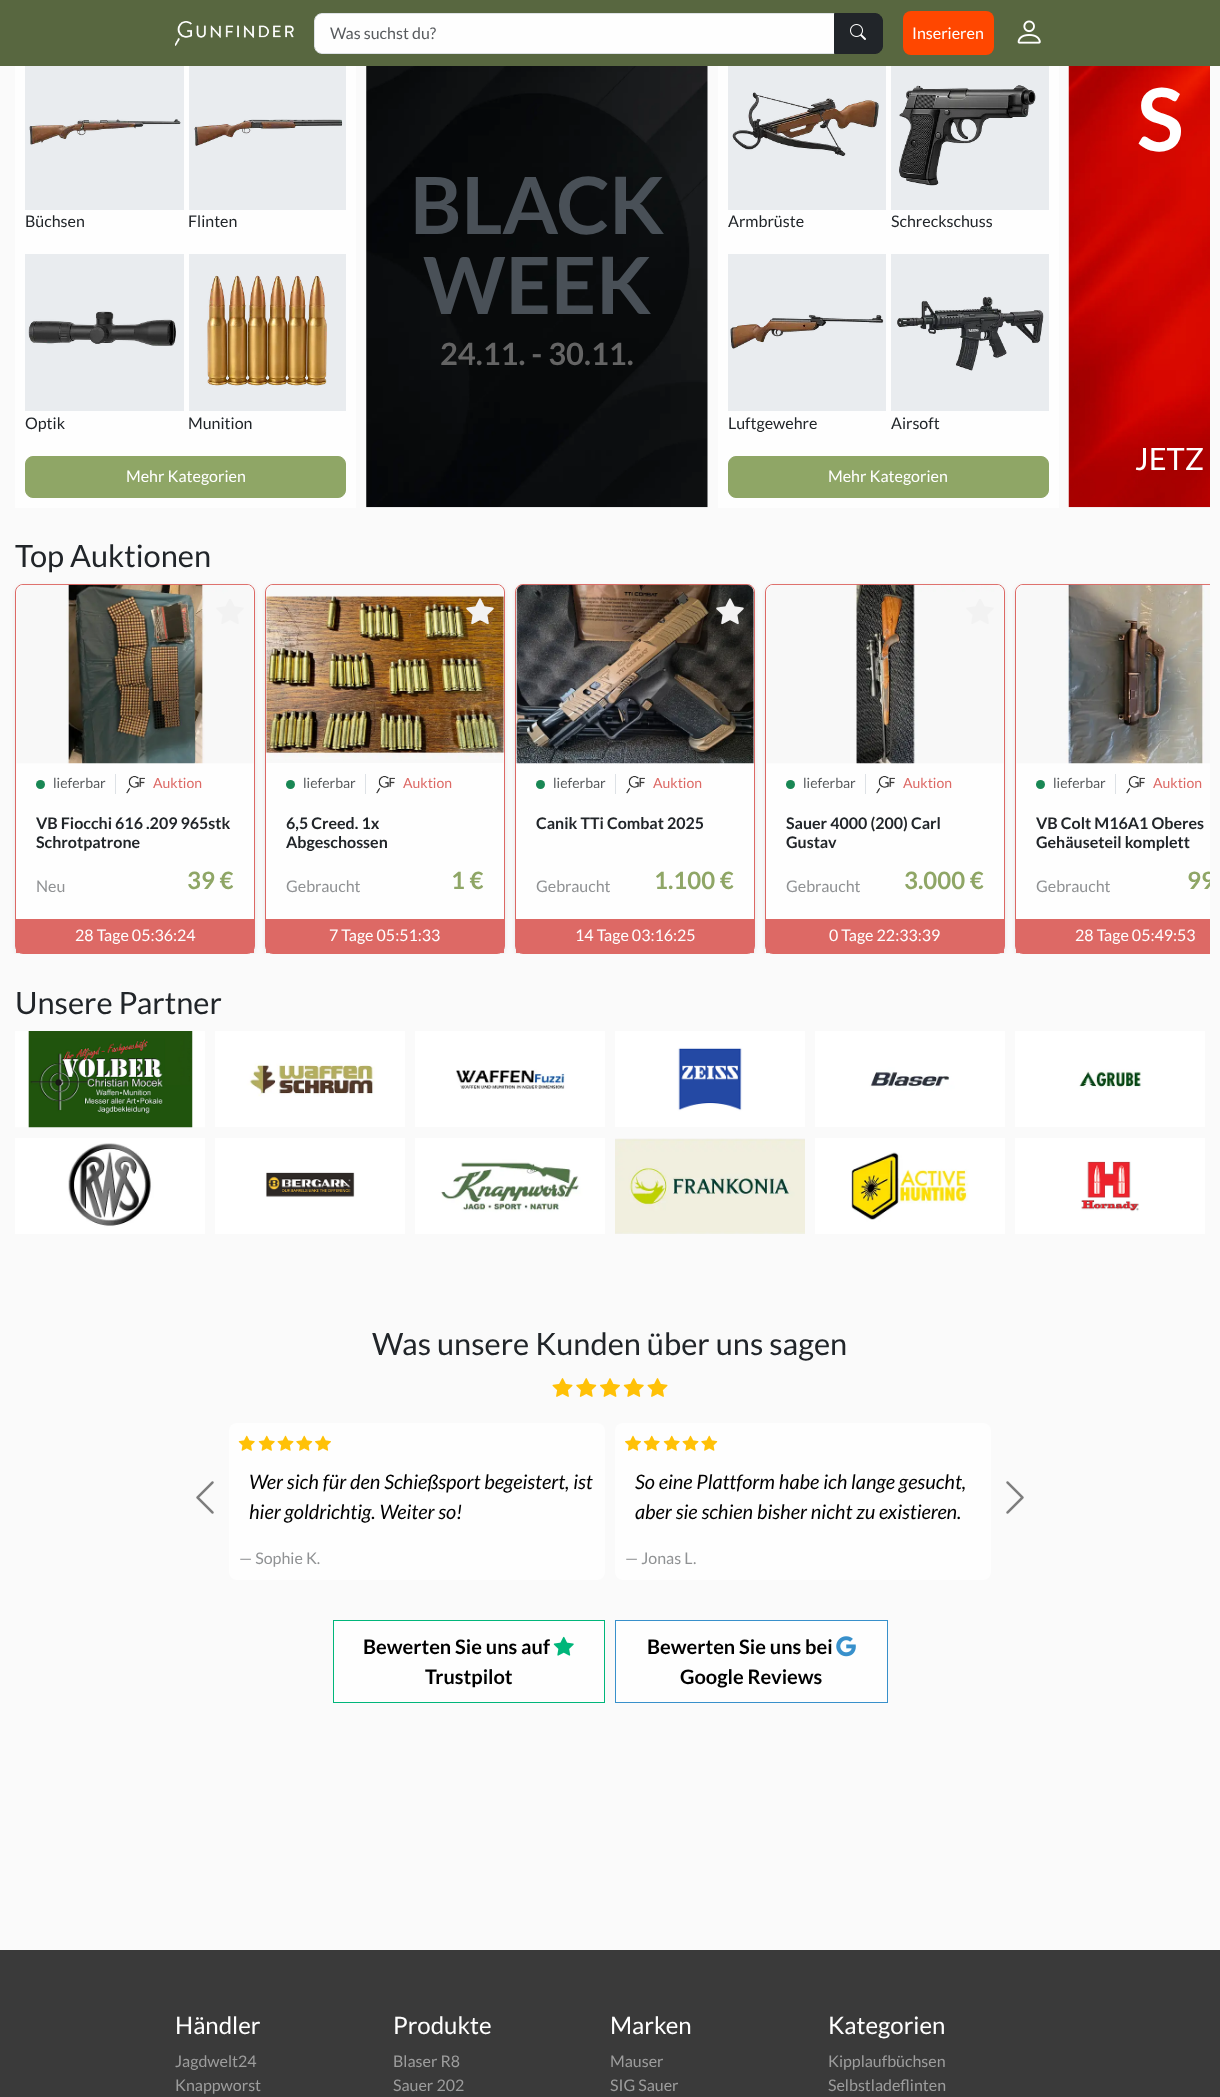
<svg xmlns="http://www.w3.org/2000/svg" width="1220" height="2097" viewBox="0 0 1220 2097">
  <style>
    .t1 { font: 16px Lato; fill: #585b5e; }
    .t2 { font: 16px Lato; fill: #fff; }
    .t3 { font: 16px Lato; fill: #212529; }
    .t4 { font: bold 79px Lato; fill: #495057; }
    .t5 { font: bold 30.8px Lato; fill: #646464; }
    .t6 { font: bold 87px Lato; fill: #fff; }
    .t7 { font: 30.8px Lato; fill: #fff; }
    .t8 { font: 30.8px Lato; fill: #212529; }
    .t9 { font: 14px Lato; fill: #585b5e; }
    .t10 { font: 14px Lato; fill: #dd6965; }
    .t11 { font: bold 16px Lato; fill: #212529; }
    .t12 { font: 16px Lato; fill: #909294; }
    .t13 { font: bold 24px Lato; fill: #8fa666; }
    .t14 { font: italic 20px Lato; fill: #000; }
    .t15 { font: bold 20px Lato; fill: #000; }
    .t16 { font: 24px Lato; fill: #fff; }
    .t17 { font: 16px Lato; fill: #9d9d9d; }
  </style>
  <defs>
    <clipPath id="clip1"><rect x="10" y="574" width="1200" height="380"/></clipPath>
    <clipPath id="clip2"><rect x="10" y="574" width="1200" height="380"/></clipPath>
  </defs>
  <rect width="100%" height="100%" fill="#fafafa"/>
  <rect x="0" y="0" width="1220" height="66" fill="#586740"/>
  <image x="175" y="21" width="119" height="25" href="images/1.png"/>
  <path d="M321 14H834V53H321C317.5 53 315 50.5 315 47V20C315 16.5 317.5 14 321 14Z" fill="#fefefe"/>
  <path d="M322 13.5H834.5V53.5H322C318 53.5 314.5 50 314.5 46V21C314.5 17 318 13.5 322 13.5Z" fill="none" stroke="#dee2e6"/>
  <text x="330" y="39" class="t1">Was suchst du?</text>
  <path d="M834.5 13.5H875C879 13.5 882.5 17 882.5 21V46C882.5 50 879 53.5 875 53.5H834.5Z" fill="#212529" stroke="#212529"/>
  <image x="850" y="24" width="16" height="16" href="images/2.png"/>
  <rect x="903" y="11" width="91" height="44" rx="8" fill="#ff4700"/>
  <text x="912" y="39" class="t2">Inserieren</text>
  <image x="1017" y="20" width="24" height="24" href="images/3.png"/>
  <rect x="15" y="66" width="341" height="442" fill="#fefefe"/>
  <rect x="25" y="66" width="159" height="144" fill="#e9ecef"/>
  <image x="29" y="119" width="152" height="26" href="images/4.png"/>
  <text x="25" y="227" class="t3">Büchsen</text>
  <rect x="189" y="66" width="157" height="144" fill="#e9ecef"/>
  <image x="194" y="119" width="149" height="27" href="images/5.png"/>
  <text x="188" y="227" class="t3">Flinten</text>
  <rect x="25" y="254" width="159" height="157" fill="#e9ecef"/>
  <image x="28" y="311" width="148" height="35" href="images/6.png"/>
  <text x="25" y="429" class="t3">Optik</text>
  <rect x="189" y="254" width="157" height="157" fill="#e9ecef"/>
  <image x="207" y="275" width="120" height="111" href="images/7.png"/>
  <text x="188" y="429" class="t3">Munition</text>
  <rect x="25.5" y="456.5" width="320" height="41" rx="7.5" fill="#8fa666" stroke="#8fa666"/>
  <text x="126" y="482" class="t2">Mehr Kategorien</text>
  <image x="366" y="66" width="342" height="442" href="images/8.png"/>
  <text x="410" y="234" class="t4">BLACK</text>
  <text x="423" y="314" class="t4">WEEK</text>
  <text x="440" y="365" class="t5">24.11. - 30.11.</text>
  <rect x="718" y="66" width="341" height="442" fill="#fefefe"/>
  <rect x="728" y="66" width="158" height="144" fill="#e9ecef"/>
  <image x="732" y="92" width="147" height="64" href="images/9.png"/>
  <text x="728" y="227" class="t3">Armbrüste</text>
  <rect x="891" y="66" width="158" height="144" fill="#e9ecef"/>
  <image x="899" y="85" width="137" height="101" href="images/10.png"/>
  <text x="891" y="227" class="t3">Schreckschuss</text>
  <rect x="728" y="254" width="158" height="157" fill="#e9ecef"/>
  <image x="730" y="314" width="154" height="35" href="images/11.png"/>
  <text x="728" y="429" class="t3">Luftgewehre</text>
  <rect x="891" y="254" width="158" height="157" fill="#e9ecef"/>
  <image x="897" y="296" width="147" height="75" href="images/12.png"/>
  <text x="891" y="429" class="t3">Airsoft</text>
  <rect x="728.5" y="456.5" width="320" height="41" rx="7.5" fill="#8fa666" stroke="#8fa666"/>
  <text x="828" y="482" class="t2">Mehr Kategorien</text>
  <image x="1068" y="66" width="142" height="442" href="images/13.png"/>
  <text x="1137" y="151" class="t6">S</text>
  <text x="1135" y="470" class="t7">JETZ</text>
  <text x="15" y="567" class="t8">Top Auktionen</text>
  <g clip-path="url(#clip1)">
    <rect x="15" y="586" width="240" height="370" rx="8" fill="#00000012" filter="blur(2.5px)"/>
  </g>
  <rect x="15.5" y="584.5" width="239" height="369" rx="7.5" fill="#fefefe" stroke="#dd6965"/>
  <image x="16" y="584" width="238" height="180" href="images/14.png"/>
  <image x="216" y="599" width="28" height="25" href="images/15.png"/>
  <rect x="115" y="774" width="1" height="20" fill="#dee2e6"/>
  <circle cx="40.5" cy="784.5" r="4.5" fill="#198754"/>
  <text x="53" y="788" class="t9">lieferbar</text>
  <image x="126" y="776" width="19" height="18" href="images/16.png"/>
  <text x="153" y="788" class="t10">Auktion</text>
  <text x="36" y="829" class="t11">VB Fiocchi 616 .209 965stk</text>
  <text x="36" y="848" class="t11">Schrotpatrone</text>
  <text x="36" y="892" class="t12">Neu</text>
  <text x="187" y="889" class="t13">39 €</text>
  <rect x="16" y="919" width="238" height="34" fill="#dd6965"/>
  <text x="75" y="941" class="t2">28 Tage 05:36:24</text>
  <g clip-path="url(#clip1)">
    <rect x="265" y="586" width="240" height="370" rx="8" fill="#00000012" filter="blur(2.5px)"/>
  </g>
  <rect x="265.5" y="584.5" width="239" height="369" rx="7.5" fill="#fefefe" stroke="#dd6965"/>
  <image x="266" y="584" width="238" height="179" href="images/17.png"/>
  <image x="466" y="598" width="28" height="27" href="images/18.png"/>
  <rect x="365" y="774" width="1" height="20" fill="#dee2e6"/>
  <circle cx="290.5" cy="784.5" r="4.5" fill="#198754"/>
  <text x="303" y="788" class="t9">lieferbar</text>
  <image x="376" y="776" width="19" height="18" href="images/16.png"/>
  <text x="403" y="788" class="t10">Auktion</text>
  <text x="286" y="829" class="t11">6,5 Creed. 1x</text>
  <text x="286" y="848" class="t11">Abgeschossen</text>
  <text x="286" y="892" class="t12">Gebraucht</text>
  <text x="451" y="889" class="t13">1 €</text>
  <rect x="266" y="919" width="238" height="34" fill="#dd6965"/>
  <text x="329" y="941" class="t2">7 Tage 05:51:33</text>
  <g clip-path="url(#clip1)">
    <rect x="515" y="586" width="240" height="370" rx="8" fill="#00000012" filter="blur(2.5px)"/>
  </g>
  <rect x="515.5" y="584.5" width="239" height="369" rx="7.5" fill="#fefefe" stroke="#dd6965"/>
  <image x="516" y="584" width="238" height="180" href="images/19.png"/>
  <image x="716" y="598" width="28" height="27" href="images/20.png"/>
  <rect x="615" y="774" width="1" height="20" fill="#dee2e6"/>
  <circle cx="540.5" cy="784.5" r="4.5" fill="#198754"/>
  <text x="553" y="788" class="t9">lieferbar</text>
  <image x="626" y="776" width="19" height="18" href="images/16.png"/>
  <text x="653" y="788" class="t10">Auktion</text>
  <text x="536" y="829" class="t11">Canik TTi Combat 2025</text>
  <text x="536" y="892" class="t12">Gebraucht</text>
  <text x="654" y="889" class="t13">1.100 €</text>
  <rect x="516" y="919" width="238" height="34" fill="#dd6965"/>
  <text x="575" y="941" class="t2">14 Tage 03:16:25</text>
  <g clip-path="url(#clip1)">
    <rect x="765" y="586" width="240" height="370" rx="8" fill="#00000012" filter="blur(2.5px)"/>
  </g>
  <rect x="765.5" y="584.5" width="239" height="369" rx="7.5" fill="#fefefe" stroke="#dd6965"/>
  <image x="766" y="584" width="238" height="180" href="images/21.png"/>
  <image x="966" y="599" width="28" height="25" href="images/15.png"/>
  <rect x="865" y="774" width="1" height="20" fill="#dee2e6"/>
  <circle cx="790.5" cy="784.5" r="4.5" fill="#198754"/>
  <text x="803" y="788" class="t9">lieferbar</text>
  <image x="876" y="776" width="19" height="18" href="images/16.png"/>
  <text x="903" y="788" class="t10">Auktion</text>
  <text x="786" y="829" class="t11">Sauer 4000 (200) Carl</text>
  <text x="786" y="848" class="t11">Gustav</text>
  <text x="786" y="892" class="t12">Gebraucht</text>
  <text x="904" y="889" class="t13">3.000 €</text>
  <rect x="766" y="919" width="238" height="34" fill="#dd6965"/>
  <text x="829" y="941" class="t2">0 Tage 22:33:39</text>
  <g clip-path="url(#clip1)">
    <rect x="1015" y="586" width="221" height="370" rx="8" fill="#00000012" filter="blur(2.5px)"/>
  </g>
  <path d="M1023 584H1210V954H1023C1018.5 954 1015 950.5 1015 946V592C1015 587.5 1018.5 584 1023 584Z" fill="#fefefe"/>
  <g clip-path="url(#clip2)">
    <rect x="1015.5" y="584.5" width="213" height="369" rx="7.5" fill="none" stroke="#dd6965"/>
  </g>
  <image x="1016" y="584" width="194" height="180" href="images/22.png"/>
  <rect x="1115" y="774" width="1" height="20" fill="#dee2e6"/>
  <circle cx="1040.5" cy="784.5" r="4.5" fill="#198754"/>
  <text x="1053" y="788" class="t9">lieferbar</text>
  <image x="1126" y="776" width="19" height="18" href="images/16.png"/>
  <text x="1153" y="788" class="t10">Auktion</text>
  <text x="1036" y="829" class="t11">VB Colt M16A1 Oberes</text>
  <text x="1036" y="848" class="t11">Gehäuseteil komplett</text>
  <text x="1036" y="892" class="t12">Gebraucht</text>
  <g clip-path="url(#clip2)">
    <text x="1187" y="889" class="t13">99</text>
  </g>
  <rect x="1016" y="919" width="194" height="34" fill="#dd6965"/>
  <text x="1075" y="941" class="t2">28 Tage 05:49:53</text>
  <text x="15" y="1014" class="t8">Unsere Partner</text>
  <image x="15" y="1031" width="190" height="97" href="images/23.png"/>
  <image x="215" y="1031" width="190" height="96" href="images/24.png"/>
  <image x="415" y="1031" width="190" height="96" href="images/25.png"/>
  <image x="615" y="1031" width="190" height="96" href="images/26.png"/>
  <image x="815" y="1031" width="190" height="96" href="images/27.png"/>
  <image x="1015" y="1031" width="190" height="96" href="images/28.png"/>
  <image x="15" y="1138" width="190" height="96" href="images/29.png"/>
  <image x="215" y="1138" width="190" height="96" href="images/30.png"/>
  <image x="415" y="1138" width="190" height="96" href="images/31.png"/>
  <image x="615" y="1138" width="190" height="96" href="images/32.png"/>
  <image x="815" y="1138" width="190" height="96" href="images/33.png"/>
  <image x="1015" y="1138" width="190" height="96" href="images/34.png"/>
  <text x="372" y="1355" class="t8">Was unsere Kunden über uns sagen</text>
  <image x="552" y="1378" width="21" height="19" href="images/35.png"/>
  <image x="576" y="1378" width="21" height="19" href="images/36.png"/>
  <image x="600" y="1378" width="20" height="19" href="images/37.png"/>
  <image x="623" y="1378" width="21" height="19" href="images/38.png"/>
  <image x="647" y="1378" width="21" height="19" href="images/35.png"/>
  <image x="196" y="1481" width="18" height="33" href="images/39.png"/>
  <rect x="229" y="1423" width="376" height="157" rx="8" fill="#fefefe"/>
  <image x="238" y="1435" width="17" height="16" href="images/40.png"/>
  <image x="258" y="1435" width="17" height="16" href="images/40.png"/>
  <image x="277" y="1435" width="17" height="16" href="images/41.png"/>
  <image x="296" y="1435" width="17" height="16" href="images/42.png"/>
  <image x="315" y="1435" width="16" height="16" href="images/43.png"/>
  <text x="249" y="1489" class="t14">Wer sich für den Schießsport begeistert, ist</text>
  <text x="249" y="1519" class="t14">hier goldrichtig. Weiter so!</text>
  <text x="239" y="1564" class="t12">— Sophie K.</text>
  <rect x="615" y="1423" width="376" height="157" rx="8" fill="#fefefe"/>
  <image x="625" y="1435" width="16" height="16" href="images/43.png"/>
  <image x="643" y="1435" width="17" height="16" href="images/40.png"/>
  <image x="663" y="1435" width="17" height="16" href="images/40.png"/>
  <image x="682" y="1435" width="17" height="16" href="images/41.png"/>
  <image x="701" y="1435" width="17" height="16" href="images/42.png"/>
  <text x="635" y="1489" class="t14">So eine Plattform habe ich lange gesucht,</text>
  <text x="635" y="1519" class="t14">aber sie schien bisher nicht zu existieren.</text>
  <text x="625" y="1564" class="t12">— Jonas L.</text>
  <image x="1006" y="1481" width="18" height="33" href="images/44.png"/>
  <rect x="333.5" y="1620.5" width="271" height="82" fill="#fefefe" stroke="#00b67a"/>
  <text x="363" y="1654" class="t15">Bewerten Sie uns auf</text>
  <image x="553" y="1636" width="21" height="20" href="images/45.png"/>
  <text x="425" y="1684" class="t15">Trustpilot</text>
  <rect x="615.5" y="1620.5" width="272" height="82" fill="#fefefe" stroke="#3890cb"/>
  <text x="647" y="1654" class="t15">Bewerten Sie uns bei</text>
  <image x="836" y="1636" width="20" height="21" href="images/46.png"/>
  <text x="680" y="1684" class="t15">Google Reviews</text>
  <rect x="0" y="1950" width="1220" height="147" fill="#3a3a3a"/>
  <text x="175" y="2034" class="t16">Händler</text>
  <text x="175" y="2067" class="t17">Jagdwelt24</text>
  <text x="175" y="2091" class="t17">Knappworst</text>
  <text x="393" y="2034" class="t16">Produkte</text>
  <text x="393" y="2067" class="t17">Blaser R8</text>
  <text x="393" y="2091" class="t17">Sauer 202</text>
  <text x="610" y="2034" class="t16">Marken</text>
  <text x="610" y="2067" class="t17">Mauser</text>
  <text x="610" y="2091" class="t17">SIG Sauer</text>
  <text x="828" y="2034" class="t16">Kategorien</text>
  <text x="828" y="2067" class="t17">Kipplaufbüchsen</text>
  <text x="828" y="2091" class="t17">Selbstladeflinten</text>
</svg>
